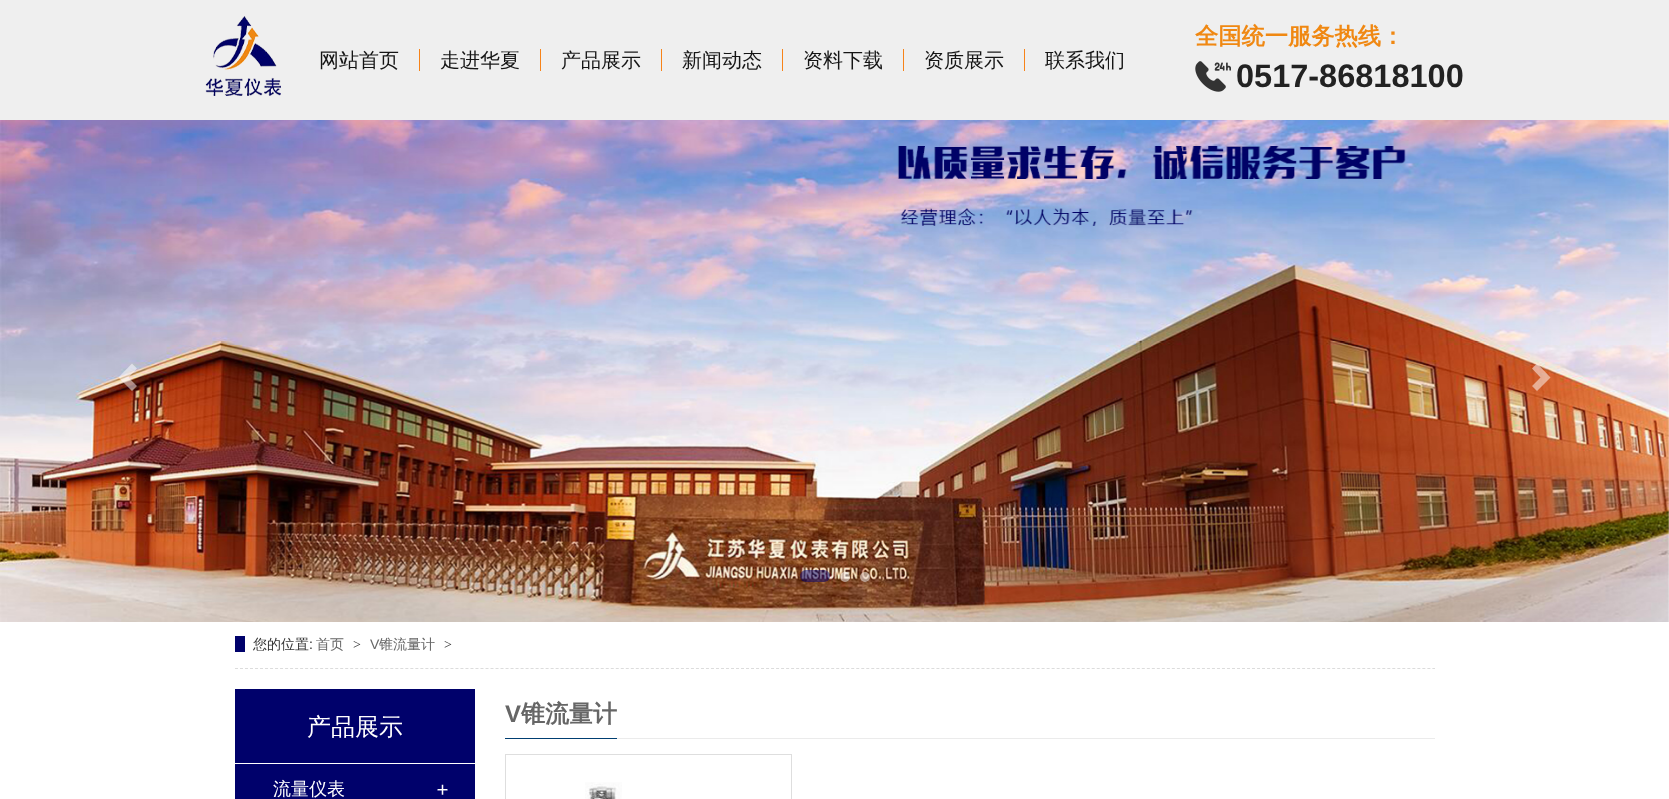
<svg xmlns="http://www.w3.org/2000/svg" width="1669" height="799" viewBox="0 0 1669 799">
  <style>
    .t1 { font: 500 20px WenQuanYi Zen Hei; fill: #151515; }
    .t2 { font: bold 23.25px WenQuanYi Zen Hei; fill: #f08812; }
    .t3 { font: bold 32.5px Liberation Sans; fill: #222; }
    .t4 { font: 500 14px WenQuanYi Zen Hei; fill: #333; }
    .t5 { font: 14px Liberation Sans; fill: #333; }
    .t6 { font: 500 14px WenQuanYi Zen Hei; fill: #666; }
    .t7 { font: 14px Liberation Serif; fill: #333; }
    .t8 { font: 14px Liberation Sans; fill: #666; }
    .t9 { font: 500 24px WenQuanYi Zen Hei; fill: #fff; }
    .t10 { font: 500 18px WenQuanYi Zen Hei; fill: #fff; }
    .t11 { font: bold 24px Liberation Sans; fill: #666; }
    .t12 { font: bold 24px WenQuanYi Zen Hei; fill: #666; }
  </style>
  <rect width="100%" height="100%" fill="#fff"/>
  <rect x="0" y="0" width="1669" height="120" fill="#efefef"/>
  <image x="205" y="16" width="76" height="80" href="images/1.png"/>
  <text x="319" y="67" class="t1">网站首页</text>
  <rect x="419" y="49" width="1" height="22" fill="#f78319"/>
  <text x="440" y="67" class="t1">走进华夏</text>
  <rect x="540" y="49" width="1" height="22" fill="#f78319"/>
  <text x="561" y="67" class="t1">产品展示</text>
  <rect x="661" y="49" width="1" height="22" fill="#f78319"/>
  <text x="682" y="67" class="t1">新闻动态</text>
  <rect x="782" y="49" width="1" height="22" fill="#f78319"/>
  <text x="803" y="67" class="t1">资料下载</text>
  <rect x="903" y="49" width="1" height="22" fill="#f78319"/>
  <text x="924" y="67" class="t1">资质展示</text>
  <rect x="1024" y="49" width="1" height="22" fill="#f78319"/>
  <text x="1045" y="67" class="t1">联系我们</text>
  <text x="1195" y="44" class="t2">全国统一服务热线：</text>
  <image x="1195" y="61" width="36" height="31" href="images/2.png"/>
  <text x="1236" y="87" class="t3">0517-86818100</text>
  <image x="0" y="120" width="1669" height="502" href="images/3.png"/>
  <path d="M137 368.5L128.5 377.5L137 386L132 391L118.5 377.5L132 363.5Z" fill="#ffffff80"/>
  <path d="M1550.5 377.5L1537 391L1532 386L1540.5 377.5L1532 368.5L1537 363.5Z" fill="#ffffff80"/>
  <rect x="800" y="570" width="30" height="12" rx="6" fill="#01006f80"/>
  <circle cx="845" cy="577" r="5" fill="#ffffff80"/>
  <circle cx="865" cy="577" r="5" fill="#ffffff80"/>
  <path d="M235 668.5H1435" fill="none" stroke="#dcdcdc" stroke-dasharray="3 2.01"/>
  <text x="253" y="649" class="t4">您的位置</text>
  <rect x="235" y="636" width="10" height="16" fill="#00016b"/>
  <text x="309" y="649" class="t5">:</text>
  <text x="316" y="649" class="t6">首页</text>
  <text x="353" y="649" class="t7">&gt;</text>
  <text x="370" y="649" class="t8">V</text>
  <text x="379" y="649" class="t6">锥流量计</text>
  <text x="444" y="649" class="t7">&gt;</text>
  <rect x="235" y="689" width="240" height="74" fill="#00016b"/>
  <text x="307" y="735" class="t9">产品展示</text>
  <rect x="235" y="764" width="240" height="35" fill="#00016b"/>
  <image x="437" y="784" width="11" height="11" href="images/4.png"/>
  <text x="273" y="795" class="t10">流量仪表</text>
  <rect x="617" y="738" width="818" height="1" fill="#ebebeb"/>
  <rect x="505" y="738" width="112" height="1" fill="#003e71"/>
  <text x="505" y="722" class="t11">V</text>
  <text x="521" y="722" class="t12">锥流量计</text>
  <rect x="505.5" y="754.5" width="286" height="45" fill="none" stroke="#dedede"/>
  <image x="585" y="782" width="37" height="17" href="images/5.png"/>
</svg>
